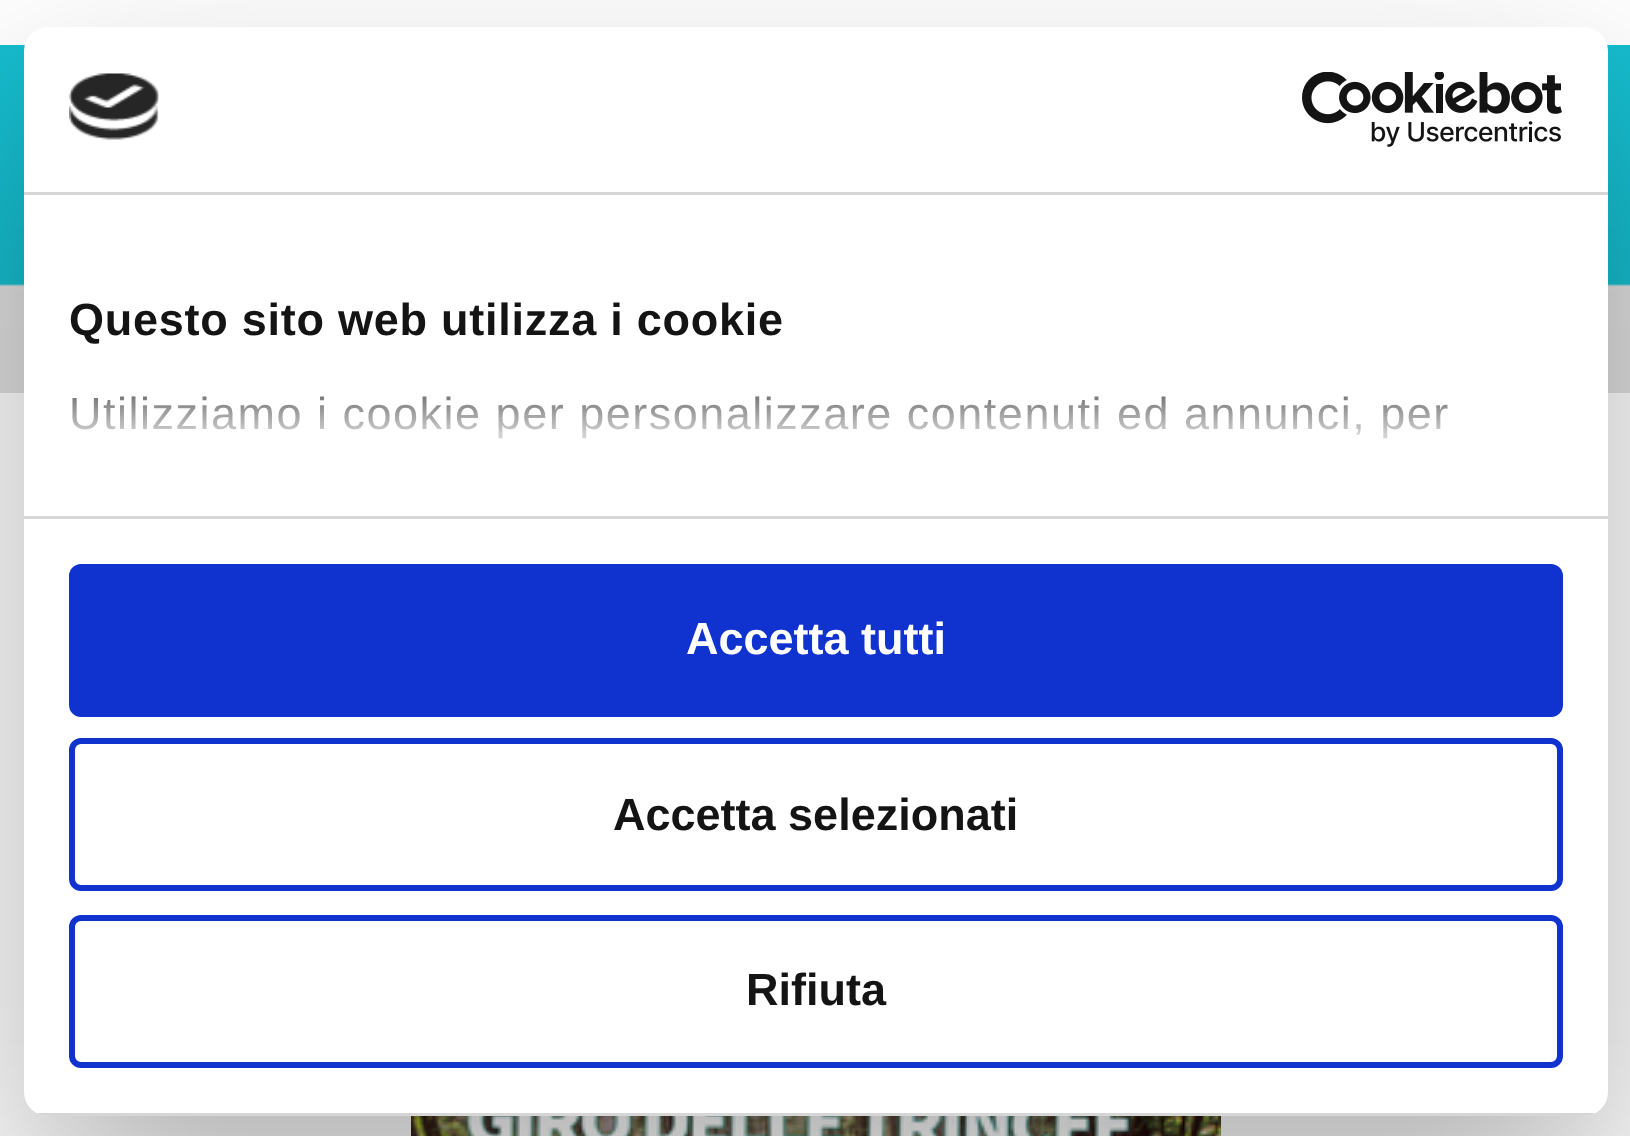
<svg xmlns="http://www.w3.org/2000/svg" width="1630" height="1136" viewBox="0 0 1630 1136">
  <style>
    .t1 { font: bold 45px Liberation Sans; letter-spacing: 0.75px; fill: #141414; }
    .t2 { font: 45px Liberation Sans; letter-spacing: 1.5px; fill: #141414; }
    .t3 { font: bold 45px Liberation Sans; fill: #fff; }
    .t4 { font: bold 45px Liberation Sans; fill: #141414; }
  </style>
  <defs>
    <linearGradient id="g1" gradientUnits="userSpaceOnUse" x1="797" y1="515" x2="797" y2="353"><stop offset="0" stop-color="#fff"/><stop offset="0.5" stop-color="#fff" stop-opacity="0.8"/><stop offset="1" stop-color="#fff" stop-opacity="0"/></linearGradient>
    <clipPath id="clip1"><rect x="24" y="27" width="1584" height="1089" rx="24"/></clipPath>
  </defs>
  <rect width="100%" height="100%" fill="#fff"/>
  <image x="0" y="45" width="1630" height="348" href="images/1.png"/>
  <image x="411" y="1116" width="810" height="20" href="images/2.png"/>
  <rect x="24" y="123" width="1584" height="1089" rx="24" fill="#0000004d" filter="blur(102px)"/>
  <rect x="24" y="27" width="1584" height="1089" rx="24" fill="#fff"/>
  <rect x="24" y="192" width="1584" height="3" fill="#d6d6d6"/>
  <image x="69" y="73" width="90" height="67" href="images/3.png"/>
  <image x="1302" y="72" width="260" height="75" href="images/4.png"/>
  <rect x="24" y="516" width="1584" height="3" fill="#d6d6d6"/>
  <text x="69" y="335" class="t1">Questo sito web utilizza i cookie</text>
  <text x="69" y="429" class="t2">Utilizziamo i cookie per personalizzare contenuti ed annunci, per</text>
  <rect x="72" y="396" width="1376" height="43" fill="url(#g1)"/>
  <g clip-path="url(#clip1)">
    <rect x="36" y="1113" width="1560" height="3" fill="#d6d6d6"/>
  </g>
  <rect x="72" y="567" width="1488" height="147" rx="9" fill="#1032cf" stroke="#1032cf" stroke-width="6"/>
  <text x="686" y="654" class="t3">Accetta tutti</text>
  <rect x="72" y="741" width="1488" height="147" rx="9" fill="none" stroke="#1032cf" stroke-width="6"/>
  <text x="613" y="830" class="t4">Accetta selezionati</text>
  <rect x="72" y="918" width="1488" height="147" rx="9" fill="none" stroke="#1032cf" stroke-width="6"/>
  <text x="746" y="1005" class="t4">Rifiuta</text>
</svg>
